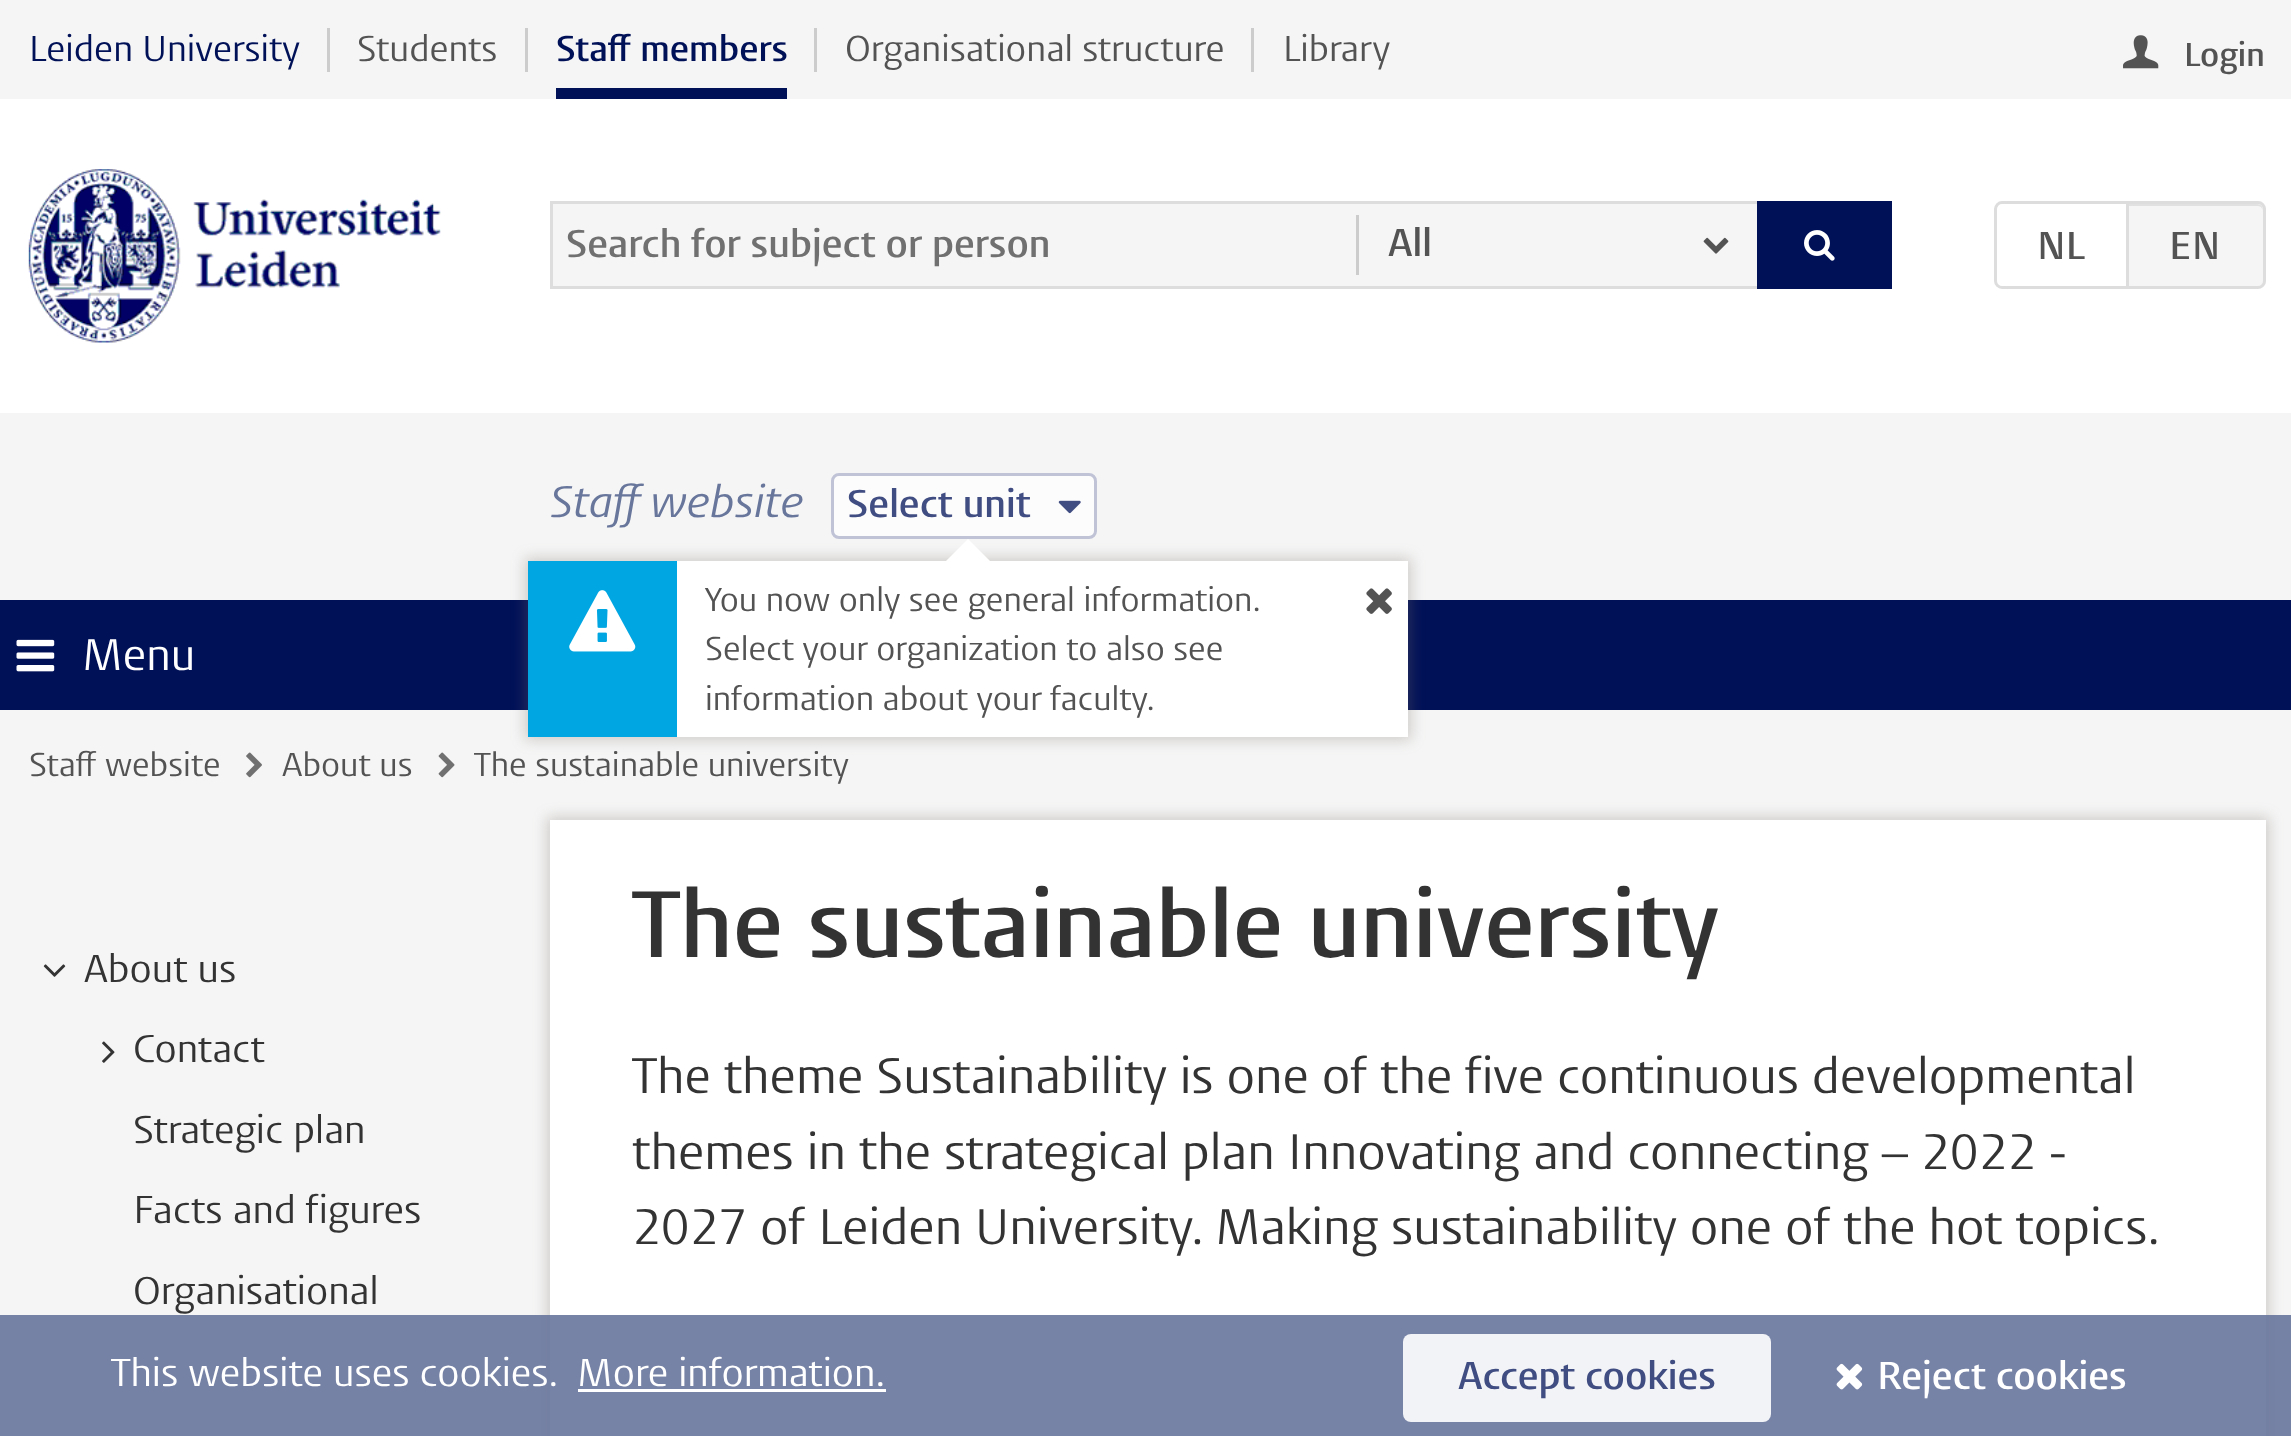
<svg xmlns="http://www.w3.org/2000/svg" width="2291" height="1436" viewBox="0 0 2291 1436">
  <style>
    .t1 { font: 35.75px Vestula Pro; fill: #001158; }
    .t2 { font: 35.75px Vestula Pro; fill: #535353; }
    .t3 { font: 600 35.75px Vestula Pro; fill: #001158; }
    .t4 { font: 600 33px Vestula Pro; fill: #535353; }
    .t5 { font: 600 38.5px Vestula Pro; fill: #707070; }
    .t6 { font: 600 38.5px Vestula Pro; fill: #535353; }
    .t7 { font: 44px Vestula Pro; fill: #fff; }
    .t8 { font: italic 44px Vestula Pro; fill: #68769c; }
    .t9 { font: 600 38.5px Vestula Pro; fill: #404d82; }
    .t10 { font: 33px Vestula Pro; fill: #535353; }
    .t11 { font: 38.5px Vestula Pro; fill: #333; }
    .t12 { font: 600 93.5px Vestula Pro; fill: #333; }
    .t13 { font: 49.5px Vestula Pro; fill: #333; }
    .t14 { font: 38.5px Vestula Pro; fill: #fff; }
    .t15 { font: 600 38.5px Vestula Pro; fill: #fff; }
  </style>
  <rect width="100%" height="100%" fill="#f5f5f5"/>
  <rect x="0" y="99" width="2291" height="314" fill="#fff"/>
  <rect x="327" y="28" width="3" height="44" fill="#ccc"/>
  <text x="29" y="61" class="t1">Leiden University</text>
  <rect x="525" y="28" width="3" height="44" fill="#ccc"/>
  <text x="357" y="61" class="t2">Students</text>
  <rect x="814" y="28" width="3" height="44" fill="#ccc"/>
  <text x="556" y="61" class="t3">Staff members</text>
  <rect x="556" y="88" width="231" height="11" fill="#001158"/>
  <rect x="1251" y="28" width="3" height="44" fill="#ccc"/>
  <text x="845" y="61" class="t2">Organisational structure</text>
  <text x="1283" y="61" class="t2">Library</text>
  <image x="2123" y="35" width="36" height="34" href="images/1.png"/>
  <text x="2184" y="66" class="t4">Login</text>
  <image x="28" y="169" width="413" height="174" href="images/2.png"/>
  <rect x="553" y="204" width="1204" height="82" fill="#f5f5f5"/>
  <rect x="550" y="201" width="1207" height="3" fill="#ddd"/>
  <rect x="550" y="286" width="1207" height="3" fill="#ddd"/>
  <rect x="550" y="201" width="3" height="88" fill="#ddd"/>
  <text x="566" y="257" class="t5">Search for subject or person</text>
  <rect x="1356" y="215" width="3" height="60" fill="#ccc"/>
  <text x="1388" y="256" class="t6">All</text>
  <image x="1703" y="237" width="26" height="17" href="images/3.png"/>
  <rect x="1757" y="201" width="135" height="88" fill="#001158"/>
  <image x="1804" y="230" width="31" height="31" href="images/4.png"/>
  <path d="M2002 202.5H2127.5V287.5H2002C1998.5 287.5 1995.5 284.5 1995.5 281V209C1995.5 205.5 1998.5 202.5 2002 202.5Z" fill="none" stroke="#ddd" stroke-width="3"/>
  <text x="2037" y="259" class="t6">NL</text>
  <path d="M2126 201H2258C2262.5 201 2266 204.5 2266 209V281C2266 285.5 2262.5 289 2258 289H2126Z" fill="#f5f5f5"/>
  <path d="M2129 204V206H2258C2261 206 2263 209 2263 212C2263 208 2262 204 2257 204Z" fill="#e1e1e1"/>
  <path d="M2127.5 202.5H2258C2261.5 202.5 2264.5 205.5 2264.5 209V281C2264.5 284.5 2261.5 287.5 2258 287.5H2127.5Z" fill="none" stroke="#ddd" stroke-width="3"/>
  <text x="2169" y="259" class="t6">EN</text>
  <rect x="0" y="600" width="2291" height="110" fill="#001158"/>
  <image x="16" y="639" width="39" height="33" href="images/5.png"/>
  <text x="82" y="670" class="t7">Menu</text>
  <text x="550" y="517" class="t8">Staff website</text>
  <rect x="832.5" y="474.5" width="263" height="63" rx="6.5" fill="#fcfcfc" stroke="#bfc3d5" stroke-width="3"/>
  <text x="847" y="517" class="t9">Select unit</text>
  <image x="1058" y="500" width="23" height="14" href="images/6.png"/>
  <rect x="525" y="558" width="886" height="182" fill="#786e644d" filter="blur(7px)"/>
  <rect x="677" y="561" width="731" height="176" fill="#fff"/>
  <path d="M990 561H946L968 539Z" fill="#fff"/>
  <rect x="528" y="561" width="149" height="176" fill="#00a6e2"/>
  <image x="569" y="590" width="67" height="62" href="images/7.png"/>
  <text x="705" y="611" class="t10">You now only see general information.</text>
  <image x="1366" y="588" width="26" height="26" href="images/8.png"/>
  <text x="705" y="660" class="t10">Select your organization to also see</text>
  <text x="705" y="710" class="t10">information about your faculty.</text>
  <text x="29" y="776" class="t10">Staff website</text>
  <image x="246" y="752" width="16" height="26" href="images/9.png"/>
  <text x="282" y="776" class="t10">About us</text>
  <image x="438" y="752" width="17" height="26" href="images/10.png"/>
  <text x="474" y="776" class="t10">The sustainable university</text>
  <image x="43" y="964" width="23" height="13" href="images/11.png"/>
  <text x="84" y="982" class="t11">About us</text>
  <image x="102" y="1041" width="13" height="22" href="images/12.png"/>
  <text x="133" y="1062" class="t11">Contact</text>
  <text x="133" y="1143" class="t11">Strategic plan</text>
  <text x="133" y="1223" class="t11">Facts and figures</text>
  <text x="133" y="1304" class="t11">Organisational</text>
  <rect x="547" y="817" width="1722" height="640" fill="#786e644d" filter="blur(7px)"/>
  <rect x="550" y="820" width="1716" height="616" fill="#fff"/>
  <text x="632" y="957" class="t12">The sustainable university</text>
  <text x="632" y="1093" class="t13">The theme Sustainability is one of the five continuous developmental</text>
  <text x="632" y="1169" class="t13">themes in the strategical plan Innovating and connecting – 2022 -</text>
  <text x="632" y="1244" class="t13">2027 of Leiden University. Making sustainability one of the hot topics.</text>
  <rect x="0" y="1315" width="2291" height="121" fill="#68769ce6"/>
  <text x="111" y="1386" class="t14">This website uses cookies.</text>
  <text x="577" y="1386" class="t14">More information.</text>
  <rect x="578" y="1389" width="308" height="3" fill="#fff"/>
  <rect x="1403" y="1334" width="368" height="88" rx="8" fill="#ffffffe6"/>
  <text x="1458" y="1389" class="t9">Accept cookies</text>
  <image x="1836" y="1363" width="27" height="27" href="images/13.png"/>
  <text x="1877" y="1389" class="t15">Reject cookies</text>
</svg>
